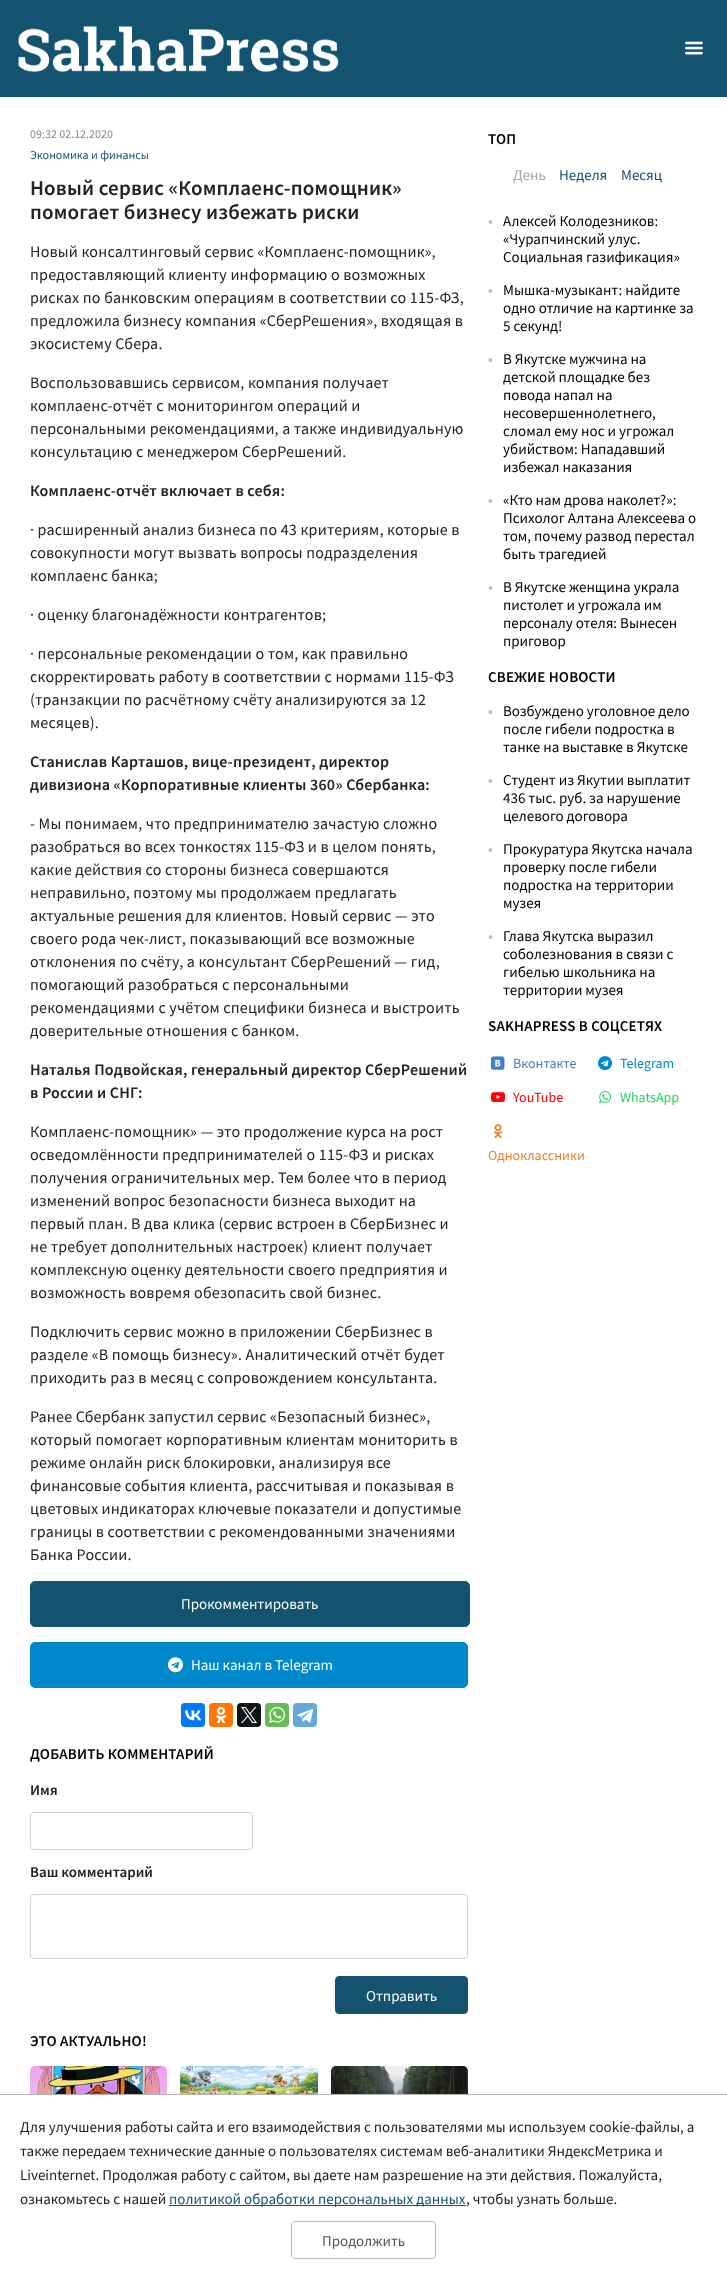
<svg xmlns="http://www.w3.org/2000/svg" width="727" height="2289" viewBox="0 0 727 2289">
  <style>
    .t1 { font: 12px Source Sans Pro; fill: #888; }
    .t2 { font: 12px Source Sans Pro; fill: #13536f; }
    .t3 { font: 600 21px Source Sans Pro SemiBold; letter-spacing: 0.2px; fill: #222; }
    .t4 { font: 16px Source Sans Pro; letter-spacing: 0.2px; fill: #222; }
    .t5 { font: 600 16px Source Sans Pro SemiBold; letter-spacing: 0.2px; fill: #222; }
    .t6 { font: 15px Source Sans Pro; fill: #fff; }
    .t7 { font: 600 15px Source Sans Pro SemiBold; letter-spacing: 0.2px; fill: #000; }
    .t8 { font: 600 15px Source Sans Pro SemiBold; fill: #222; }
    .t9 { font: 15px Source Sans Pro; fill: #aba8a8; }
    .t10 { font: 15px Source Sans Pro; fill: #13536f; }
    .t11 { font: 600 15px Source Sans Pro SemiBold; fill: #bebebe; }
    .t12 { font: 15px Source Sans Pro; fill: #000; }
    .t13 { font: 14px Source Sans Pro; fill: #4680c2; }
    .t14 { font: 14px Source Sans Pro; fill: #f00; }
    .t15 { font: 14px Source Sans Pro; fill: #ed812b; }
    .t16 { font: 14px Source Sans Pro; fill: #08c; }
    .t17 { font: 14px Source Sans Pro; fill: #25d366; }
    .t18 { font: 15px Source Sans Pro; fill: #222; }
    .t19 { font: 15px Source Sans Pro; fill: #555; }
  </style>
  <rect width="100%" height="100%" fill="#13536f"/>
  <image x="18" y="26" width="321" height="47" href="images/1.png"/>
  <image x="685" y="41" width="18" height="14" href="images/2.png"/>
  <rect x="0" y="97" width="727" height="1998" fill="#fff"/>
  <text x="30" y="138" class="t1">09:32 02.12.2020</text>
  <text x="30" y="159" class="t2">Экономика и финансы</text>
  <text x="30" y="195" class="t3">Новый сервис «Комплаенс-помощник»</text>
  <text x="30" y="219" class="t3">помогает бизнесу избежать риски</text>
  <text x="30" y="257" class="t4">Новый консалтинговый сервис «Комплаенс-помощник»,</text>
  <text x="30" y="280" class="t4">предоставляющий клиенту информацию о возможных</text>
  <text x="30" y="303" class="t4">рисках по банковским операциям в соответствии со 115-ФЗ,</text>
  <text x="30" y="326" class="t4">предложила бизнесу компания «СберРешения», входящая в</text>
  <text x="30" y="349" class="t4">экосистему Сбера.</text>
  <text x="30" y="388" class="t4">Воспользовавшись сервисом, компания получает</text>
  <text x="30" y="411" class="t4">комплаенс-отчёт с мониторингом операций и</text>
  <text x="30" y="434" class="t4">персональными рекомендациями, а также индивидуальную</text>
  <text x="30" y="457" class="t4">консультацию с менеджером СберРешений.</text>
  <text x="30" y="496" class="t5">Комплаенс-отчёт включает в себя:</text>
  <text x="30" y="535" class="t4">· расширенный анализ бизнеса по 43 критериям, которые в</text>
  <text x="30" y="558" class="t4">совокупности могут вызвать вопросы подразделения</text>
  <text x="30" y="581" class="t4">комплаенс банка;</text>
  <text x="30" y="620" class="t4">· оценку благонадёжности контрагентов;</text>
  <text x="30" y="659" class="t4">· персональные рекомендации о том, как правильно</text>
  <text x="30" y="682" class="t4">скорректировать работу в соответствии с нормами 115-ФЗ</text>
  <text x="30" y="705" class="t4">(транзакции по расчётному счёту анализируются за 12</text>
  <text x="30" y="728" class="t4">месяцев).</text>
  <text x="30" y="767" class="t5">Станислав Карташов, вице-президент, директор</text>
  <text x="30" y="790" class="t5">дивизиона «Корпоративные клиенты 360» Сбербанка:</text>
  <text x="30" y="829" class="t4">- Мы понимаем, что предпринимателю зачастую сложно</text>
  <text x="30" y="852" class="t4">разобраться во всех тонкостях 115-ФЗ и в целом понять,</text>
  <text x="30" y="875" class="t4">какие действия со стороны бизнеса совершаются</text>
  <text x="30" y="898" class="t4">неправильно, поэтому мы продолжаем предлагать</text>
  <text x="30" y="921" class="t4">актуальные решения для клиентов. Новый сервис — это</text>
  <text x="30" y="944" class="t4">своего рода чек-лист, показывающий все возможные</text>
  <text x="30" y="967" class="t4">отклонения по счёту, а консультант СберРешений — гид,</text>
  <text x="30" y="990" class="t4">помогающий разобраться с персональными</text>
  <text x="30" y="1013" class="t4">рекомендациями с учётом специфики бизнеса и выстроить</text>
  <text x="30" y="1036" class="t4">доверительные отношения с банком.</text>
  <text x="30" y="1075" class="t5">Наталья Подвойская, генеральный директор СберРешений</text>
  <text x="30" y="1098" class="t5">в России и СНГ:</text>
  <text x="30" y="1137" class="t4">Комплаенс-помощник» — это продолжение курса на рост</text>
  <text x="30" y="1160" class="t4">осведомлённости предпринимателей о 115-ФЗ и рисках</text>
  <text x="30" y="1183" class="t4">получения ограничительных мер. Тем более что в период</text>
  <text x="30" y="1206" class="t4">изменений вопрос безопасности бизнеса выходит на</text>
  <text x="30" y="1229" class="t4">первый план. В два клика (сервис встроен в СберБизнес и</text>
  <text x="30" y="1252" class="t4">не требует дополнительных настроек) клиент получает</text>
  <text x="30" y="1275" class="t4">комплексную оценку деятельности своего предприятия и</text>
  <text x="30" y="1298" class="t4">возможность вовремя обезопасить свой бизнес.</text>
  <text x="30" y="1337" class="t4">Подключить сервис можно в приложении СберБизнес в</text>
  <text x="30" y="1360" class="t4">разделе «В помощь бизнесу». Аналитический отчёт будет</text>
  <text x="30" y="1383" class="t4">приходить раз в месяц с сопровождением консультанта.</text>
  <text x="30" y="1422" class="t4">Ранее Сбербанк запустил сервис «Безопасный бизнес»,</text>
  <text x="30" y="1445" class="t4">который помогает корпоративным клиентам мониторить в</text>
  <text x="30" y="1468" class="t4">режиме онлайн риск блокировки, анализируя все</text>
  <text x="30" y="1491" class="t4">финансовые события клиента, рассчитывая и показывая в</text>
  <text x="30" y="1514" class="t4">цветовых индикаторах ключевые показатели и допустимые</text>
  <text x="30" y="1537" class="t4">границы в соответствии с рекомендованными значениями</text>
  <text x="30" y="1560" class="t4">Банка России.</text>
  <rect x="30.5" y="1581.5" width="439" height="45" rx="4.5" fill="#13536f" stroke="#13536f"/>
  <text x="181" y="1609" class="t6">Прокомментировать</text>
  <rect x="30.5" y="1642.5" width="437" height="45" rx="4.5" fill="#08c" stroke="#08c"/>
  <image x="168" y="1657" width="15" height="16" href="images/3.png"/>
  <text x="191" y="1670" class="t6">Наш канал в Telegram</text>
  <rect x="181" y="1703" width="24" height="24" rx="4" fill="#07f"/>
  <image x="185" y="1710" width="16" height="11" href="images/4.png"/>
  <rect x="209" y="1703" width="24" height="24" rx="4" fill="#f70"/>
  <image x="215" y="1707" width="12" height="16" href="images/5.png"/>
  <rect x="237" y="1703" width="24" height="24" rx="4" fill="#0f1419"/>
  <image x="241" y="1707" width="16" height="16" href="images/6.png"/>
  <rect x="265" y="1703" width="24" height="24" rx="4" fill="#65bc54"/>
  <image x="269" y="1707" width="16" height="16" href="images/7.png"/>
  <rect x="293" y="1703" width="24" height="24" rx="4" fill="#64a9dc"/>
  <image x="297" y="1709" width="16" height="14" href="images/8.png"/>
  <text x="30" y="1759" class="t7">ДОБАВИТЬ КОММЕНТАРИЙ</text>
  <text x="30" y="1795" class="t8">Имя</text>
  <rect x="30.5" y="1812.5" width="222" height="37" rx="3.5" fill="none" stroke="#d1d1d1"/>
  <text x="30" y="1877" class="t8">Ваш комментарий</text>
  <rect x="30.5" y="1894.5" width="437" height="64" rx="3.5" fill="none" stroke="#d1d1d1"/>
  <rect x="335.5" y="1976.5" width="132" height="37" rx="3.5" fill="#13536f" stroke="#13536f"/>
  <text x="366" y="2001" class="t6">Отправить</text>
  <text x="30" y="2046" class="t7">ЭТО АКТУАЛЬНО!</text>
  <image x="30" y="2066" width="137" height="29" href="images/9.png"/>
  <image x="180" y="2066" width="138" height="29" href="images/10.png"/>
  <image x="331" y="2066" width="137" height="29" href="images/11.png"/>
  <text x="488" y="144" class="t7">ТОП</text>
  <text x="513" y="180" class="t9">День</text>
  <text x="559" y="180" class="t10">Неделя</text>
  <text x="621" y="180" class="t10">Месяц</text>
  <text x="488" y="226" class="t11">•</text>
  <text x="503" y="226" class="t12">Алексей Колодезников:</text>
  <text x="503" y="244" class="t12">«Чурапчинский улус.</text>
  <text x="503" y="262" class="t12">Социальная газификация»</text>
  <text x="488" y="295" class="t11">•</text>
  <text x="503" y="295" class="t12">Мышка-музыкант: найдите</text>
  <text x="503" y="313" class="t12">одно отличие на картинке за</text>
  <text x="503" y="331" class="t12">5 секунд!</text>
  <text x="488" y="364" class="t11">•</text>
  <text x="503" y="364" class="t12">В Якутске мужчина на</text>
  <text x="503" y="382" class="t12">детской площадке без</text>
  <text x="503" y="400" class="t12">повода напал на</text>
  <text x="503" y="418" class="t12">несовершеннолетнего,</text>
  <text x="503" y="436" class="t12">сломал ему нос и угрожал</text>
  <text x="503" y="454" class="t12">убийством: Нападавший</text>
  <text x="503" y="472" class="t12">избежал наказания</text>
  <text x="488" y="505" class="t11">•</text>
  <text x="503" y="505" class="t12">«Кто нам дрова наколет?»:</text>
  <text x="503" y="523" class="t12">Психолог Алтана Алексеева о</text>
  <text x="503" y="541" class="t12">том, почему развод перестал</text>
  <text x="503" y="559" class="t12">быть трагедией</text>
  <text x="488" y="592" class="t11">•</text>
  <text x="503" y="592" class="t12">В Якутске женщина украла</text>
  <text x="503" y="610" class="t12">пистолет и угрожала им</text>
  <text x="503" y="628" class="t12">персоналу отеля: Вынесен</text>
  <text x="503" y="646" class="t12">приговор</text>
  <text x="488" y="682" class="t7">СВЕЖИЕ НОВОСТИ</text>
  <text x="488" y="716" class="t11">•</text>
  <text x="503" y="716" class="t12">Возбуждено уголовное дело</text>
  <text x="503" y="734" class="t12">после гибели подростка в</text>
  <text x="503" y="752" class="t12">танке на выставке в Якутске</text>
  <text x="488" y="785" class="t11">•</text>
  <text x="503" y="785" class="t12">Студент из Якутии выплатит</text>
  <text x="503" y="803" class="t12">436 тыс. руб. за нарушение</text>
  <text x="503" y="821" class="t12">целевого договора</text>
  <text x="488" y="854" class="t11">•</text>
  <text x="503" y="854" class="t12">Прокуратура Якутска начала</text>
  <text x="503" y="872" class="t12">проверку после гибели</text>
  <text x="503" y="890" class="t12">подростка на территории</text>
  <text x="503" y="908" class="t12">музея</text>
  <text x="488" y="941" class="t11">•</text>
  <text x="503" y="941" class="t12">Глава Якутска выразил</text>
  <text x="503" y="959" class="t12">соболезнования в связи с</text>
  <text x="503" y="977" class="t12">гибелью школьника на</text>
  <text x="503" y="995" class="t12">территории музея</text>
  <text x="488" y="1031" class="t7">SAKHAPRESS В СОЦСЕТЯХ</text>
  <image x="491" y="1056" width="14" height="14" href="images/12.png"/>
  <text x="513" y="1068" class="t13">Вконтакте</text>
  <image x="491" y="1092" width="14" height="10" href="images/13.png"/>
  <text x="513" y="1102" class="t14">YouTube</text>
  <image x="493" y="1124" width="10" height="15" href="images/14.png"/>
  <text x="488" y="1160" class="t15">Одноклассники</text>
  <image x="598" y="1056" width="14" height="15" href="images/15.png"/>
  <text x="620" y="1068" class="t16">Telegram</text>
  <image x="599" y="1091" width="12" height="13" href="images/16.png"/>
  <text x="620" y="1102" class="t17">WhatsApp</text>
  <rect x="0" y="2094" width="727" height="194" fill="#b5b3b5" filter="blur(0.5px)"/>
  <rect x="0" y="2095" width="727" height="194" fill="#fff"/>
  <text x="20" y="2132" class="t18">Для улучшения работы сайта и его взаимодействия с пользователями мы используем cookie-файлы, а</text>
  <text x="20" y="2156" class="t18">также передаем технические данные о пользователях системам веб-аналитики ЯндексМетрика и</text>
  <text x="20" y="2180" class="t18">Liveinternet. Продолжая работу с сайтом, вы даете нам разрешение на эти действия. Пожалуйста,</text>
  <text x="20" y="2204" class="t18">ознакомьтесь с нашей</text>
  <rect x="169" y="2205" width="297" height="1" fill="#13536f"/>
  <text x="169" y="2204" class="t10">политикой обработки персональных данных</text>
  <text x="466" y="2204" class="t18">, чтобы узнать больше.</text>
  <rect x="291.5" y="2221.5" width="144" height="37" rx="3.5" fill="none" stroke="#bbb"/>
  <text x="322" y="2246" class="t19">Продолжить</text>
</svg>
